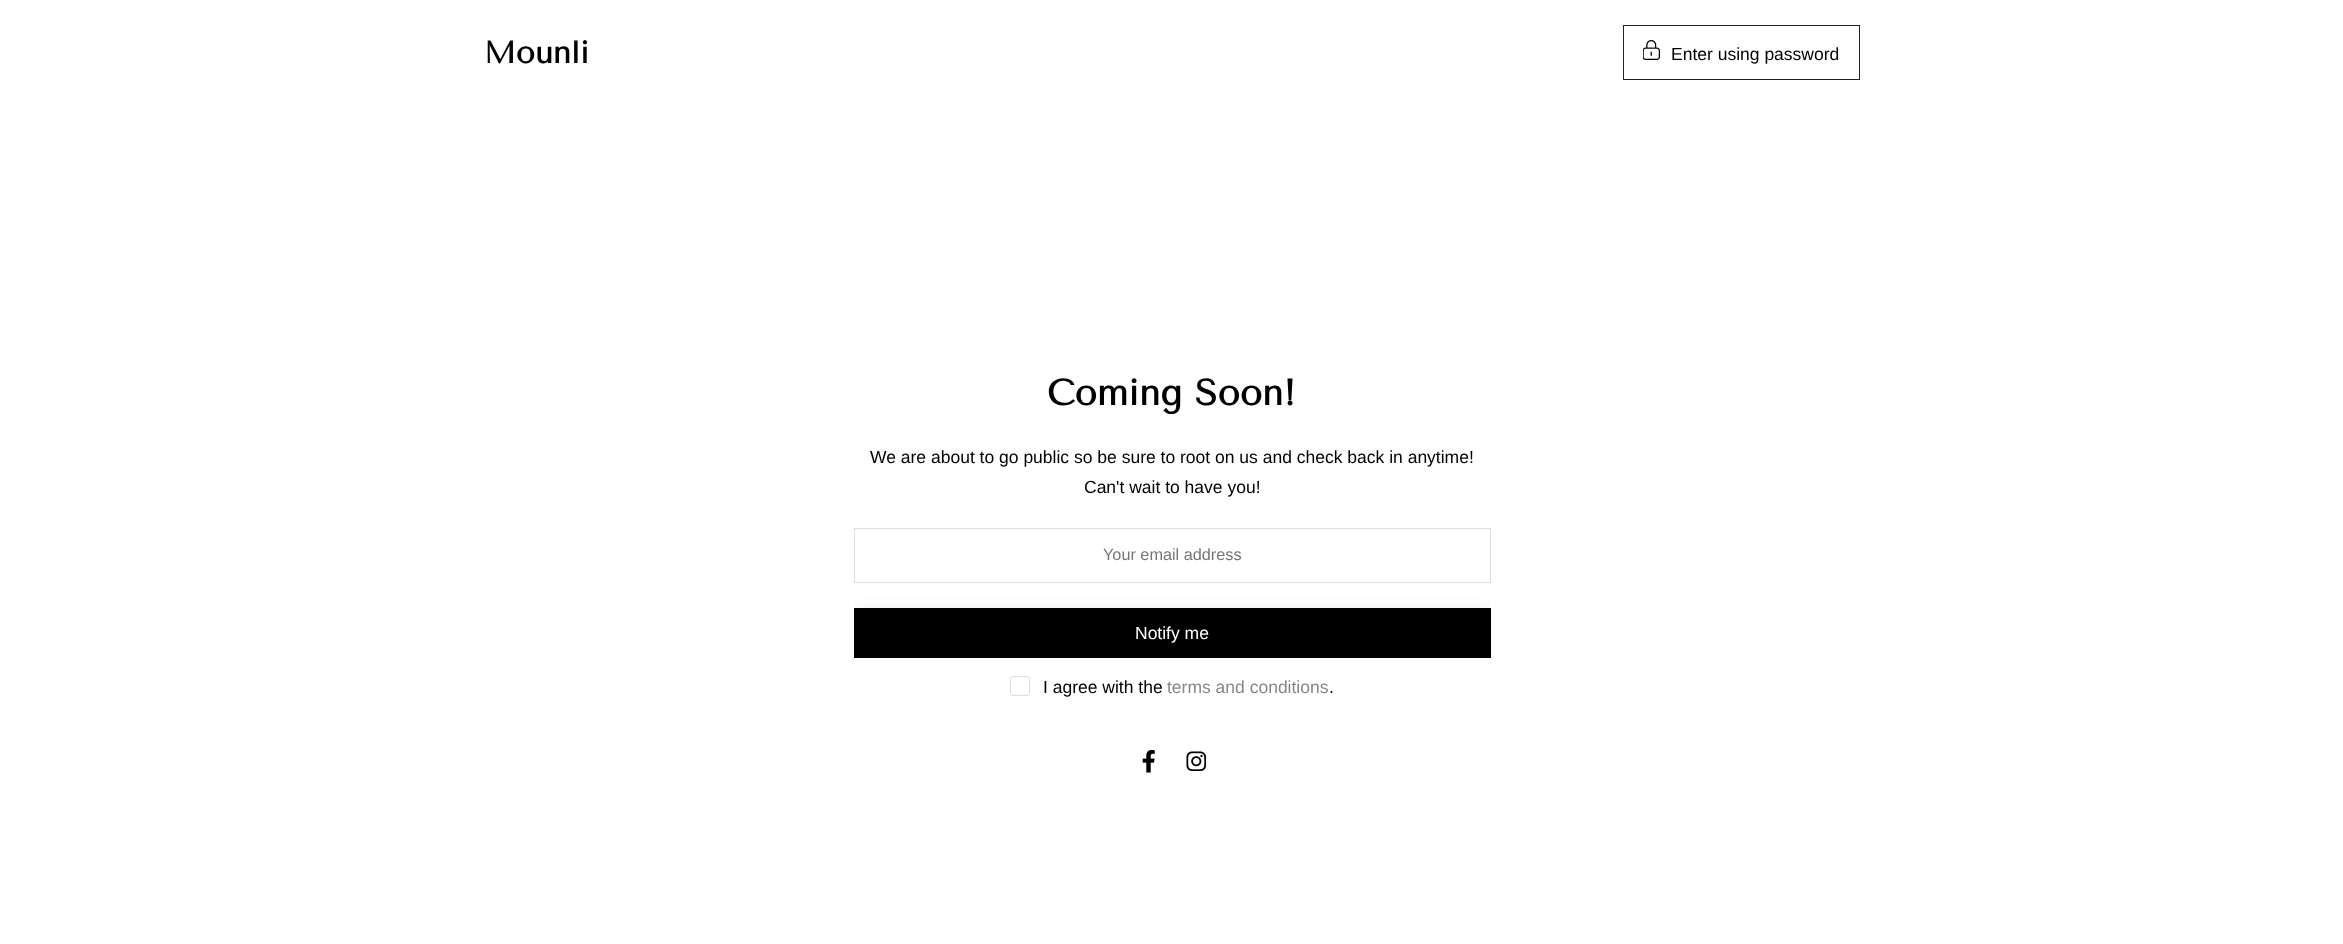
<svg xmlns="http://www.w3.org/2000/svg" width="2343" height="944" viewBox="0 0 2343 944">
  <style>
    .t1 { font: bold 31px Tenor Sans; fill: #000; }
    .t2 { font: 17.5px Liberation Sans; fill: #000; }
    .t3 { font: bold 36.25px Tenor Sans; fill: #000; }
    .t4 { font: 16.25px Liberation Sans; fill: #757575; }
    .t5 { font: 17.5px Liberation Sans; fill: #fff; }
    .t6 { font: 17.5px Liberation Sans; fill: #878787; }
  </style>
  <defs>
    <clipPath id="clip1"><rect x="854" y="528" width="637" height="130"/></clipPath>
  </defs>
  <rect width="100%" height="100%" fill="#fff"/>
  <text x="484" y="63" class="t1">Mounli</text>
  <rect x="1623.5" y="25.5" width="236" height="54" fill="none" stroke="#222"/>
  <image x="1643" y="40" width="17" height="20" href="images/1.png"/>
  <text x="1671" y="60" class="t2">Enter using password</text>
  <text x="1047" y="405" class="t3">Coming Soon!</text>
  <text x="870" y="463" class="t2">We are about to go public so be sure to root on us and check back in anytime!</text>
  <text x="1084" y="493" class="t2">Can't wait to have you!</text>
  <rect x="854.5" y="528.5" width="636" height="54" fill="none" stroke="#ddd"/>
  <text x="1103" y="560" class="t4">Your email address</text>
  <g clip-path="url(#clip1)">
    <rect x="854" y="614" width="637" height="50" fill="#00000026" filter="blur(9.5px)"/>
  </g>
  <rect x="854" y="608" width="637" height="50" fill="#000"/>
  <text x="1135" y="639" class="t5">Notify me</text>
  <rect x="1010.5" y="676.5" width="19" height="19" rx="2" fill="none" stroke="#ddd"/>
  <text x="1043" y="693" class="t2">I agree with the</text>
  <text x="1167" y="693" class="t6">terms and conditions</text>
  <text x="1329" y="693" class="t2">.</text>
  <image x="1142" y="750" width="13" height="23" href="images/2.png"/>
  <image x="1186" y="751" width="21" height="20" href="images/3.png"/>
</svg>
